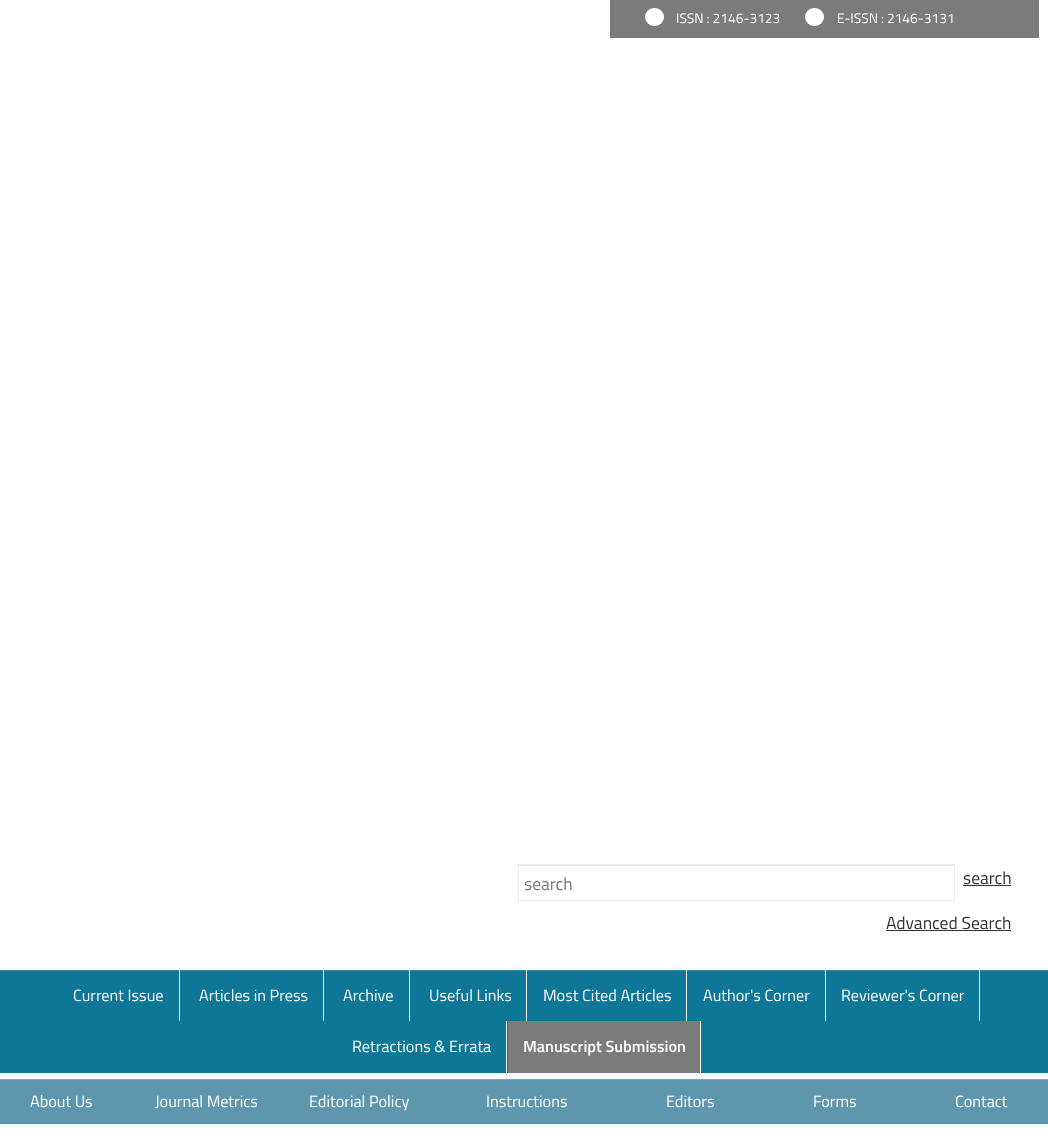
<svg xmlns="http://www.w3.org/2000/svg" width="1048" height="1138" viewBox="0 0 1048 1138">
  <style>
    .t1 { font: 13.75px Titillium Web; fill: #fff; }
    .t2 { font: 17.5px Titillium Web; fill: #777; }
    .t3 { font: 17.5px Titillium Web; fill: #333; }
    .t4 { font: 16.25px Titillium Web; fill: #fff; }
    .t5 { font: 600 16.25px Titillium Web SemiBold; fill: #fff; }
  </style>
  <rect width="100%" height="100%" fill="#fff"/>
  <rect x="610" y="0" width="429" height="38" fill="#7b7b7b"/>
  <rect x="645" y="8" width="19" height="18" rx="9" fill="#fff"/>
  <text x="676" y="23" class="t1">ISSN : 2146-3123</text>
  <rect x="805" y="8" width="19" height="18" rx="9" fill="#fff"/>
  <text x="837" y="23" class="t1">E-ISSN : 2146-3131</text>
  <rect x="519" y="865" width="435" height="1" fill="#ececec"/>
  <rect x="518.5" y="864.5" width="436" height="36" fill="none" stroke="#eaeaea"/>
  <text x="524" y="890" class="t2">search</text>
  <text x="963" y="884" class="t3">search</text>
  <rect x="963" y="885" width="48" height="1" fill="#333"/>
  <text x="886" y="929" class="t3">Advanced Search</text>
  <rect x="886" y="930" width="125" height="1" fill="#333"/>
  <rect x="-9" y="971" width="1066" height="103" fill="#00000012" filter="blur(3px)"/>
  <rect x="0" y="971" width="1048" height="102" fill="#0e7696"/>
  <rect x="0" y="970" width="1048" height="1" fill="#328ba6"/>
  <rect x="179" y="970" width="1" height="51" fill="#f4f4f4"/>
  <text x="73" y="1001" class="t4">Current Issue</text>
  <rect x="323" y="970" width="1" height="51" fill="#f4f4f4"/>
  <text x="199" y="1001" class="t4">Articles in Press</text>
  <rect x="409" y="970" width="1" height="51" fill="#f4f4f4"/>
  <text x="343" y="1001" class="t4">Archive</text>
  <rect x="526" y="970" width="1" height="51" fill="#f4f4f4"/>
  <text x="429" y="1001" class="t4">Useful Links</text>
  <rect x="686" y="970" width="1" height="51" fill="#f4f4f4"/>
  <text x="543" y="1001" class="t4">Most Cited Articles</text>
  <rect x="825" y="970" width="1" height="51" fill="#f4f4f4"/>
  <text x="703" y="1001" class="t4">Author's Corner</text>
  <rect x="979" y="970" width="1" height="51" fill="#f4f4f4"/>
  <text x="841" y="1001" class="t4">Reviewer's Corner</text>
  <rect x="-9" y="1080" width="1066" height="45" fill="#00000012" filter="blur(3px)"/>
  <rect x="506" y="1021" width="1" height="52" fill="#f4f4f4"/>
  <text x="352" y="1052" class="t4">Retractions &amp; Errata</text>
  <rect x="508" y="1021" width="192" height="52" fill="#7b7b7b"/>
  <rect x="700" y="1021" width="1" height="52" fill="#f4f4f4"/>
  <text x="523" y="1052" class="t5">Manuscript Submission</text>
  <rect x="0" y="1080" width="1048" height="44" fill="#5e97ad"/>
  <rect x="0" y="1079" width="1048" height="1" fill="#76a7b9"/>
  <text x="30" y="1107" class="t4">About Us</text>
  <text x="155" y="1107" class="t4">Journal Metrics</text>
  <text x="309" y="1107" class="t4">Editorial Policy</text>
  <text x="486" y="1107" class="t4">Instructions</text>
  <text x="666" y="1107" class="t4">Editors</text>
  <text x="813" y="1107" class="t4">Forms</text>
  <text x="955" y="1107" class="t4">Contact</text>
</svg>
